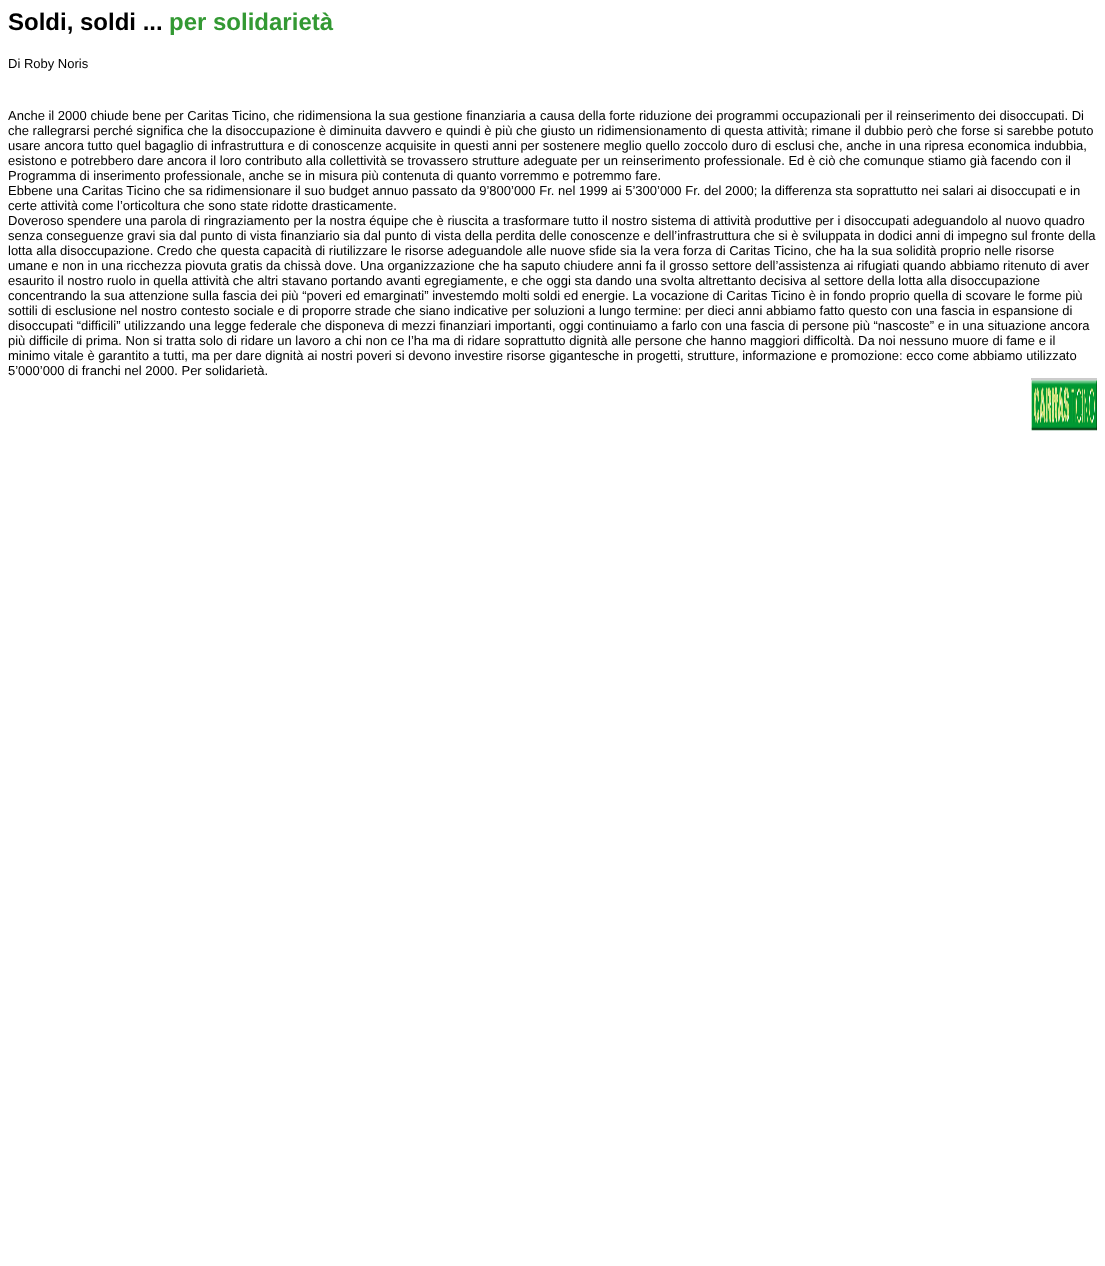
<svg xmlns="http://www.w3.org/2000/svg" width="1105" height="1266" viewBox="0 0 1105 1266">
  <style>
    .t1 { font: bold 24px Liberation Sans; fill: #000; }
    .t2 { font: bold 24px Liberation Sans; fill: #393; }
    .t3 { font: 13px Liberation Sans; fill: #000; }
  </style>
  <rect width="100%" height="100%" fill="#fff"/>
  <text x="8" y="30" class="t1">Soldi, soldi ...</text>
  <text x="169" y="30" class="t2">per solidarietà</text>
  <text x="8" y="68" class="t3">Di Roby Noris</text>
  <text x="8" y="120" class="t3">Anche il 2000 chiude bene per Caritas Ticino, che ridimensiona la sua gestione finanziaria a causa della forte riduzione dei programmi occupazionali per il reinserimento dei disoccupati. Di</text>
  <text x="8" y="135" class="t3">che rallegrarsi perché significa che la disoccupazione è diminuita davvero e quindi è più che giusto un ridimensionamento di questa attività; rimane il dubbio però che forse si sarebbe potuto</text>
  <text x="8" y="150" class="t3">usare ancora tutto quel bagaglio di infrastruttura e di conoscenze acquisite in questi anni per sostenere meglio quello zoccolo duro di esclusi che, anche in una ripresa economica indubbia,</text>
  <text x="8" y="165" class="t3">esistono e potrebbero dare ancora il loro contributo alla collettività se trovassero strutture adeguate per un reinserimento professionale. Ed è ciò che comunque stiamo già facendo con il</text>
  <text x="8" y="180" class="t3">Programma di inserimento professionale, anche se in misura più contenuta di quanto vorremmo e potremmo fare.</text>
  <text x="8" y="195" class="t3">Ebbene una Caritas Ticino che sa ridimensionare il suo budget annuo passato da 9’800’000 Fr. nel 1999 ai 5’300’000 Fr. del 2000; la differenza sta soprattutto nei salari ai disoccupati e in</text>
  <text x="8" y="210" class="t3">certe attività come l’orticoltura che sono state ridotte drasticamente.</text>
  <text x="8" y="225" class="t3">Doveroso spendere una parola di ringraziamento per la nostra équipe che è riuscita a trasformare tutto il nostro sistema di attività produttive per i disoccupati adeguandolo al nuovo quadro</text>
  <text x="8" y="240" class="t3">senza conseguenze gravi sia dal punto di vista finanziario sia dal punto di vista della perdita delle conoscenze e dell’infrastruttura che si è sviluppata in dodici anni di impegno sul fronte della</text>
  <text x="8" y="255" class="t3">lotta alla disoccupazione. Credo che questa capacità di riutilizzare le risorse adeguandole alle nuove sfide sia la vera forza di Caritas Ticino, che ha la sua solidità proprio nelle risorse</text>
  <text x="8" y="270" class="t3">umane e non in una ricchezza piovuta gratis da chissà dove. Una organizzazione che ha saputo chiudere anni fa il grosso settore dell’assistenza ai rifugiati quando abbiamo ritenuto di aver</text>
  <text x="8" y="285" class="t3">esaurito il nostro ruolo in quella attività che altri stavano portando avanti egregiamente, e che oggi sta dando una svolta altrettanto decisiva al settore della lotta alla disoccupazione</text>
  <text x="8" y="300" class="t3">concentrando la sua attenzione sulla fascia dei più “poveri ed emarginati” investemdo molti soldi ed energie. La vocazione di Caritas Ticino è in fondo proprio quella di scovare le forme più</text>
  <text x="8" y="315" class="t3">sottili di esclusione nel nostro contesto sociale e di proporre strade che siano indicative per soluzioni a lungo termine: per dieci anni abbiamo fatto questo con una fascia in espansione di</text>
  <text x="8" y="330" class="t3">disoccupati “difficili” utilizzando una legge federale che disponeva di mezzi finanziari importanti, oggi continuiamo a farlo con una fascia di persone più “nascoste” e in una situazione ancora</text>
  <text x="8" y="345" class="t3">più difficile di prima. Non si tratta solo di ridare un lavoro a chi non ce l’ha ma di ridare soprattutto dignità alle persone che hanno maggiori difficoltà. Da noi nessuno muore di fame e il</text>
  <text x="8" y="360" class="t3">minimo vitale è garantito a tutti, ma per dare dignità ai nostri poveri si devono investire risorse gigantesche in progetti, strutture, informazione e promozione: ecco come abbiamo utilizzato</text>
  <text x="8" y="375" class="t3">5’000’000 di franchi nel 2000. Per solidarietà.</text>
  <image x="1031" y="378" width="66" height="53" href="images/1.png"/>
</svg>
